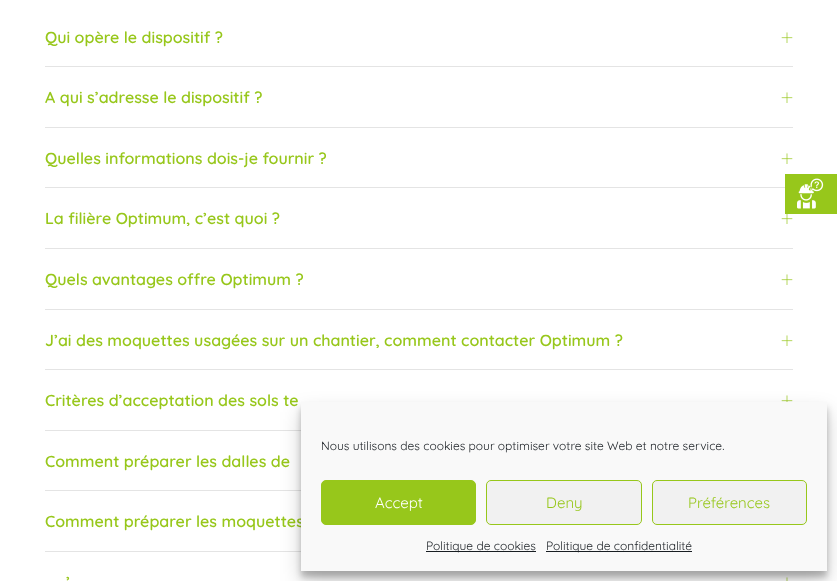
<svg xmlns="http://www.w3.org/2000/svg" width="837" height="581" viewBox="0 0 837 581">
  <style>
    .t1 { font: 600 16px Quicksand; fill: #97c71b; }
    .t2 { font: 12px Quicksand; fill: #191e23; }
    .t3 { font: 15px Quicksand; fill: #fff; }
    .t4 { font: 15px Quicksand; fill: #97c71b; }
  </style>
  <rect width="100%" height="100%" fill="#fff"/>
  <rect x="45" y="66" width="748" height="1" fill="#e4e4e4"/>
  <text x="45" y="43" class="t1">Qui opère le dispositif ?</text>
  <image x="781" y="32" width="12" height="11" href="images/1.png"/>
  <rect x="45" y="127" width="748" height="1" fill="#e4e4e4"/>
  <text x="45" y="103" class="t1">A qui s’adresse le dispositif ?</text>
  <image x="781" y="92" width="12" height="11" href="images/1.png"/>
  <rect x="45" y="187" width="748" height="1" fill="#e4e4e4"/>
  <text x="45" y="164" class="t1">Quelles informations dois-je fournir ?</text>
  <image x="781" y="153" width="12" height="11" href="images/1.png"/>
  <rect x="45" y="248" width="748" height="1" fill="#e4e4e4"/>
  <text x="45" y="224" class="t1">La filière Optimum, c’est quoi ?</text>
  <image x="781" y="214" width="12" height="10" href="images/2.png"/>
  <rect x="45" y="309" width="748" height="1" fill="#e4e4e4"/>
  <text x="45" y="285" class="t1">Quels avantages offre Optimum ?</text>
  <image x="781" y="274" width="12" height="11" href="images/1.png"/>
  <rect x="45" y="369" width="748" height="1" fill="#e4e4e4"/>
  <text x="45" y="346" class="t1">J’ai des moquettes usagées sur un chantier, comment contacter Optimum ?</text>
  <image x="781" y="335" width="12" height="11" href="images/1.png"/>
  <rect x="45" y="430" width="256" height="1" fill="#e4e4e4"/>
  <text x="45" y="406" class="t1">Critères d’acceptation des sols te</text>
  <image x="781" y="395" width="12" height="7" href="images/3.png"/>
  <rect x="45" y="490" width="256" height="1" fill="#e4e4e4"/>
  <text x="45" y="467" class="t1">Comment préparer les dalles de</text>
  <rect x="45" y="551" width="256" height="1" fill="#e4e4e4"/>
  <text x="45" y="527" class="t1">Comment préparer les moquettes</text>
  <text x="66" y="588" class="t1">’</text>
  <image x="786" y="577" width="2" height="4" href="images/4.png"/>
  <rect x="785" y="174" width="52" height="40" fill="#97c71b"/>
  <image x="797" y="178" width="27" height="31" href="images/5.png"/>
  <rect x="301" y="408" width="526" height="169" fill="#0000003b" filter="blur(3px)"/>
  <rect x="301" y="412" width="526" height="169" fill="#00000030" filter="blur(10px)"/>
  <rect x="301" y="402" width="526" height="169" fill="#f9f9f9"/>
  <text x="321" y="450" class="t2">Nous utilisons des cookies pour optimiser votre site Web et notre service.</text>
  <rect x="321.5" y="480.5" width="154" height="44" rx="4.5" fill="#97c71b" stroke="#97c71b"/>
  <text x="375" y="508" class="t3">Accept</text>
  <rect x="486.5" y="480.5" width="155" height="44" rx="4.5" fill="#f1f1f1" stroke="#97c71b"/>
  <text x="546" y="508" class="t4">Deny</text>
  <rect x="652.5" y="480.5" width="154" height="44" rx="4.5" fill="#f1f1f1" stroke="#97c71b"/>
  <text x="688" y="508" class="t4">Préférences</text>
  <rect x="426" y="551" width="110" height="1" fill="#191e23"/>
  <text x="426" y="550" class="t2">Politique de cookies</text>
  <rect x="546" y="551" width="146" height="1" fill="#191e23"/>
  <text x="546" y="550" class="t2">Politique de confidentialité</text>
</svg>
